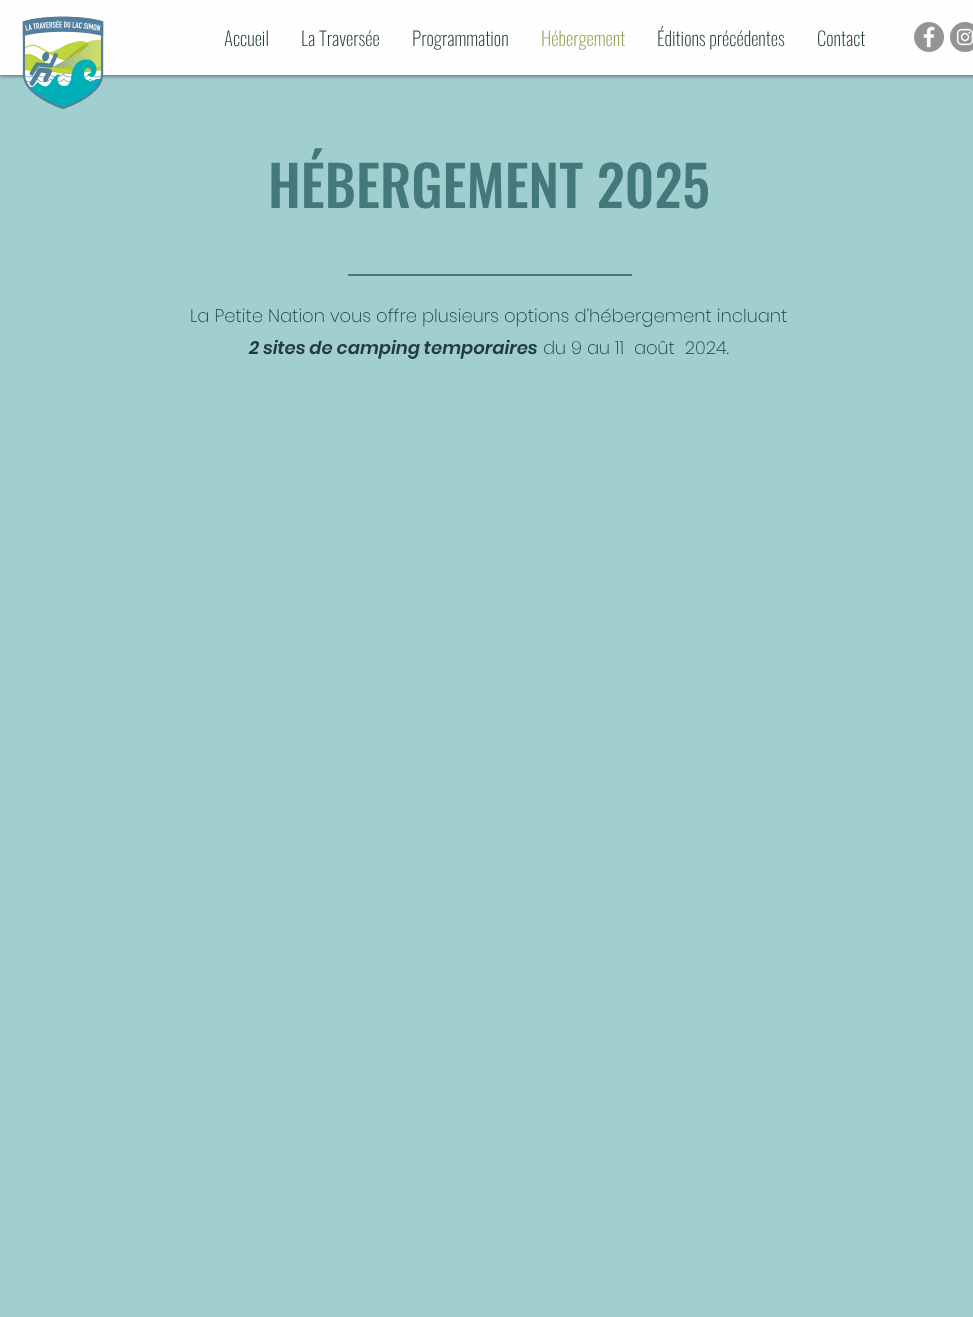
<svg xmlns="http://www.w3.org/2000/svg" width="973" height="1317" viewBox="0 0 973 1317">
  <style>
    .t1 { font: 200 19px Oswald; fill: #223c3d; }
    .t2 { font: 200 19px Oswald; fill: #90a04f; }
    .t3 { font: 500 56px Oswald; fill: #43797a; }
    .t4 { font: 200 18px Poppins; fill: #223c3d; }
    .t5 { font: italic 600 18px Poppins; fill: #223c3d; }
  </style>
  <rect width="100%" height="100%" fill="#a1cecf"/>
  <rect x="0" y="0" width="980" height="75" fill="#000000b3" filter="blur(2.5px)"/>
  <rect x="0" y="0" width="973" height="75" fill="#fefefe"/>
  <image x="22" y="16" width="82" height="93" href="images/1.png"/>
  <text x="224" y="46" class="t1">Accueil</text>
  <text x="301" y="46" class="t1">La Traversée</text>
  <text x="412" y="46" class="t1">Programmation</text>
  <text x="541" y="46" class="t2">Hébergement</text>
  <text x="657" y="46" class="t1">Éditions précédentes</text>
  <text x="817" y="46" class="t1">Contact</text>
  <image x="914" y="22" width="30" height="30" href="images/2.png"/>
  <image x="950" y="22" width="23" height="30" href="images/3.png"/>
  <text x="268" y="208" class="t3">HÉBERGEMENT 2025</text>
  <rect x="348" y="274" width="284" height="2" fill="#43797a"/>
  <text x="190" y="322" class="t4">La Petite Nation vous offre plusieurs options d’hébergement incluant</text>
  <text x="249" y="354" class="t5">2 sites de camping temporaires</text>
  <text x="543" y="354" class="t4" xml:space="preserve">du 9 au 11  août  2024.</text>
</svg>
